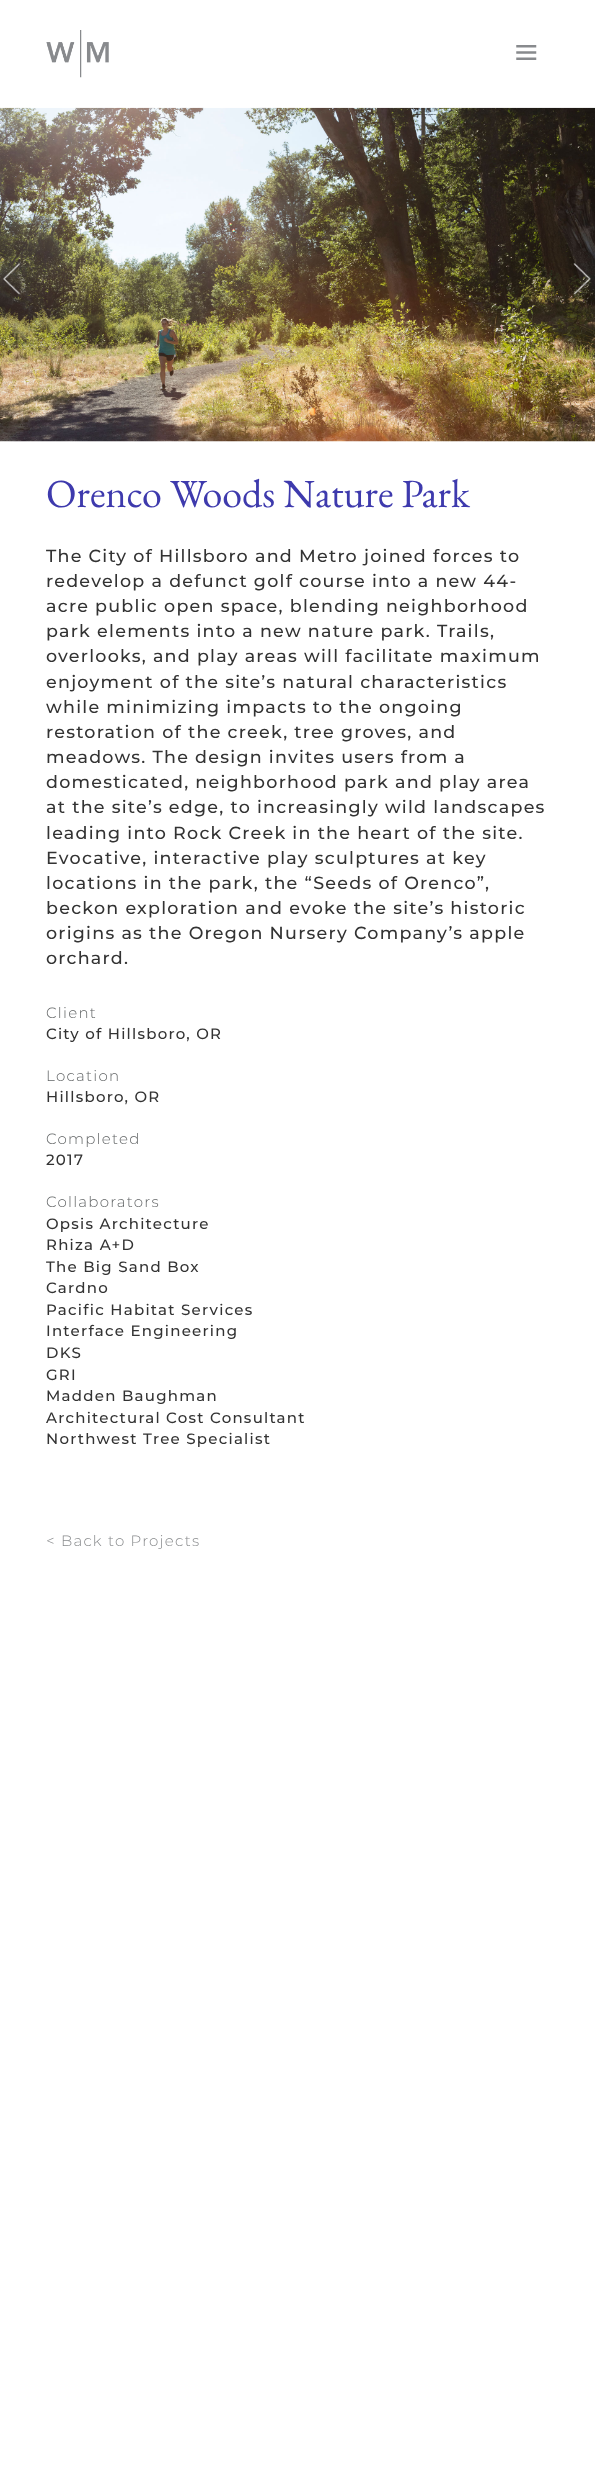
<svg xmlns="http://www.w3.org/2000/svg" width="595" height="2470" viewBox="0 0 595 2470">
  <style>
    .t1 { font: 40px EB Garamond; fill: #3e3aad; }
    .t2 { font: 500 17.5px Montserrat; letter-spacing: 1.25px; fill: #333; }
    .t3 { font: 300 15px Montserrat; letter-spacing: 1.25px; fill: #646768; }
    .t4 { font: 500 15px Montserrat; letter-spacing: 1.25px; fill: #333; }
    .t5 { font: 300 15px Montserrat; letter-spacing: 1.25px; fill: #898b8d; }
  </style>
  <rect width="100%" height="100%" fill="#fff"/>
  <image x="0" y="107" width="595" height="335" href="images/3.png"/>
  <rect x="0" y="107" width="595" height="1" fill="#ffffffd9"/>
  <image x="46" y="30" width="63" height="48" href="images/1.png"/>
  <image x="516" y="45" width="21" height="15" href="images/2.png"/>
  <image x="3" y="263" width="18" height="32" href="images/4.png"/>
  <image x="573" y="263" width="18" height="32" href="images/5.png"/>
  <text x="46" y="507" class="t1">Orenco Woods Nature Park</text>
  <text x="46" y="562" class="t2">The City of Hillsboro and Metro joined forces to</text>
  <text x="46" y="587" class="t2">redevelop a defunct golf course into a new 44-</text>
  <text x="46" y="612" class="t2">acre public open space, blending neighborhood</text>
  <text x="46" y="637" class="t2">park elements into a new nature park. Trails,</text>
  <text x="46" y="662" class="t2">overlooks, and play areas will facilitate maximum</text>
  <text x="46" y="688" class="t2">enjoyment of the site’s natural characteristics</text>
  <text x="46" y="713" class="t2">while minimizing impacts to the ongoing</text>
  <text x="46" y="738" class="t2">restoration of the creek, tree groves, and</text>
  <text x="46" y="763" class="t2">meadows. The design invites users from a</text>
  <text x="46" y="788" class="t2">domesticated, neighborhood park and play area</text>
  <text x="46" y="813" class="t2">at the site’s edge, to increasingly wild landscapes</text>
  <text x="46" y="839" class="t2">leading into Rock Creek in the heart of the site.</text>
  <text x="46" y="864" class="t2">Evocative, interactive play sculptures at key</text>
  <text x="46" y="889" class="t2">locations in the park, the “Seeds of Orenco”,</text>
  <text x="46" y="914" class="t2">beckon exploration and evoke the site’s historic</text>
  <text x="46" y="939" class="t2">origins as the Oregon Nursery Company’s apple</text>
  <text x="46" y="964" class="t2">orchard.</text>
  <text x="46" y="1018" class="t3">Client</text>
  <text x="46" y="1039" class="t4">City of Hillsboro, OR</text>
  <text x="46" y="1081" class="t3">Location</text>
  <text x="46" y="1102" class="t4">Hillsboro, OR</text>
  <text x="46" y="1144" class="t3">Completed</text>
  <text x="46" y="1165" class="t4">2017</text>
  <text x="46" y="1207" class="t3">Collaborators</text>
  <text x="46" y="1229" class="t4">Opsis Architecture</text>
  <text x="46" y="1250" class="t4">Rhiza A+D</text>
  <text x="46" y="1272" class="t4">The Big Sand Box</text>
  <text x="46" y="1293" class="t4">Cardno</text>
  <text x="46" y="1315" class="t4">Pacific Habitat Services</text>
  <text x="46" y="1336" class="t4">Interface Engineering</text>
  <text x="46" y="1358" class="t4">DKS</text>
  <text x="46" y="1380" class="t4">GRI</text>
  <text x="46" y="1401" class="t4">Madden Baughman</text>
  <text x="46" y="1423" class="t4">Architectural Cost Consultant</text>
  <text x="46" y="1444" class="t4">Northwest Tree Specialist</text>
  <text x="46" y="1546" class="t5">&lt; Back to Projects</text>
</svg>
